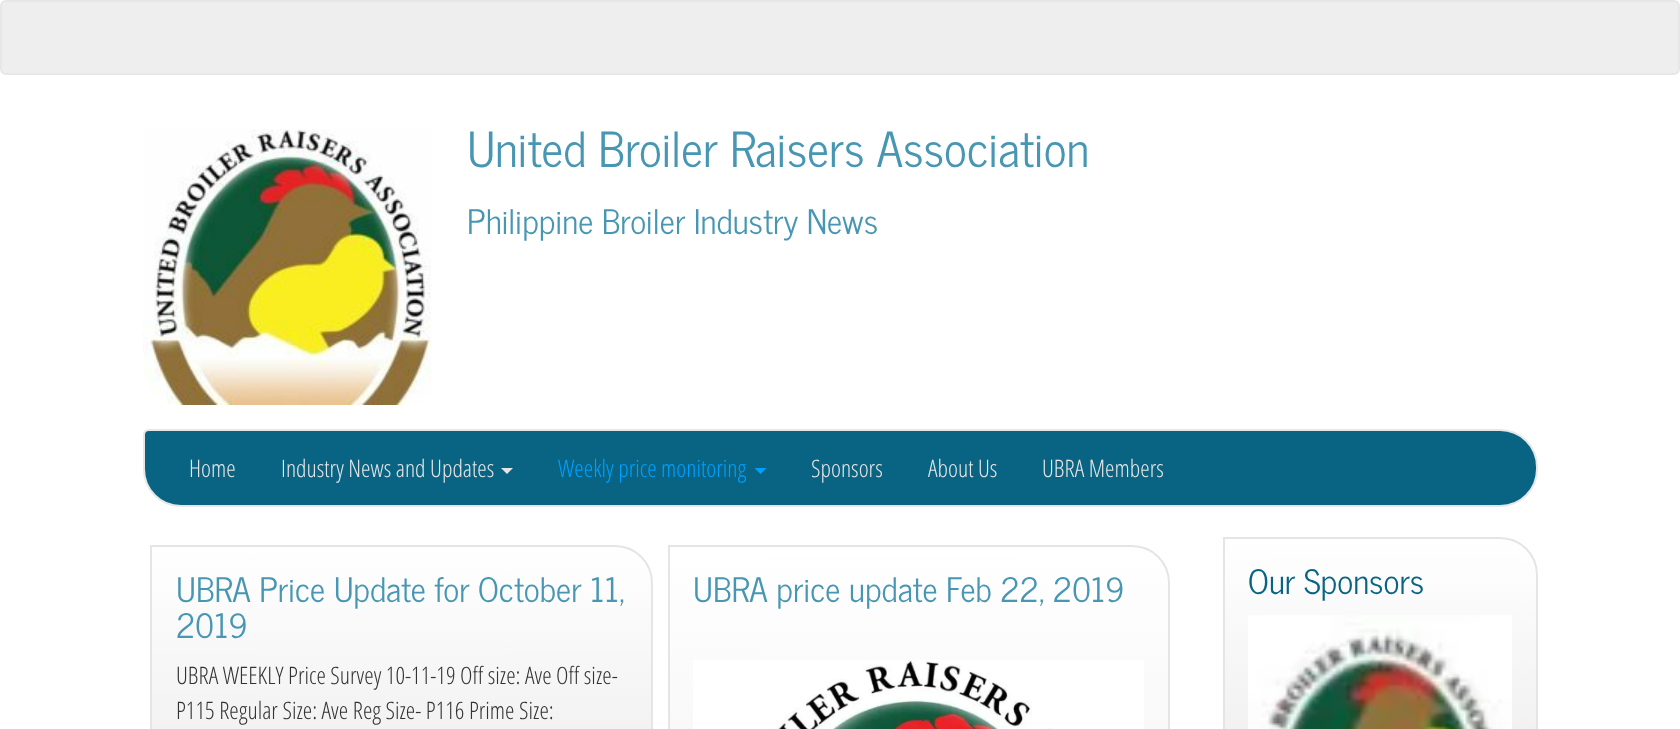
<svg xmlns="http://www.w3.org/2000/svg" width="1680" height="729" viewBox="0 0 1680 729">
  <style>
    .t1 { font: 48px News Cycle; fill: #4796b3; }
    .t2 { font: 33.6px News Cycle; fill: #4796b3; }
    .t3 { font: 300 24px Open Sans Condensed; fill: #e5e5e5; }
    .t4 { font: 300 24px Open Sans Condensed; fill: #01a0ff; }
    .t5 { font: 300 24px Open Sans Condensed; fill: #333; }
    .t6 { font: 33.6px News Cycle; fill: #096484; }
  </style>
  <defs>
    <clipPath id="clip1"><path d="M150 545H615C636 545 653 562 653 583V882C653 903 636 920 615 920H188C167 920 150 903 150 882Z"/></clipPath>
    <linearGradient id="g1" gradientUnits="userSpaceOnUse" x1="401" y1="546" x2="401" y2="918"><stop offset="0" stop-color="#fff"/><stop offset="1" stop-color="#e5e5e5"/></linearGradient>
    <clipPath id="clip2"><path d="M668 545H1132C1153 545 1170 562 1170 583V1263C1170 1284 1153 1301 1132 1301H706C685 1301 668 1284 668 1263Z"/></clipPath>
    <linearGradient id="g2" gradientUnits="userSpaceOnUse" x1="919" y1="546" x2="919" y2="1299"><stop offset="0" stop-color="#fff"/><stop offset="1" stop-color="#e5e5e5"/></linearGradient>
    <clipPath id="clip3"><path d="M1223 537H1500C1521 537 1538 554 1538 575V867C1538 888 1521 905 1500 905H1261C1240 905 1223 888 1223 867Z"/></clipPath>
    <linearGradient id="g3" gradientUnits="userSpaceOnUse" x1="1380" y1="539" x2="1380" y2="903"><stop offset="0" stop-color="#fff"/><stop offset="1" stop-color="#e5e5e5"/></linearGradient>
  </defs>
  <rect width="100%" height="100%" fill="#fff"/>
  <rect x="1" y="1" width="1678" height="73" rx="5" fill="#eee" stroke="#e7e7e7" stroke-width="2"/>
  <image x="143" y="129" width="289" height="276" href="images/1.png"/>
  <text x="467" y="167" class="t1">United Broiler Raisers Association</text>
  <text x="467" y="234" class="t2">Philippine Broiler Industry News</text>
  <path d="M149 430H1500C1520.5 430 1537 446.5 1537 467V469C1537 489.5 1520.5 506 1500 506H181C160.5 506 144 489.5 144 469V435C144 432 146 430 149 430Z" fill="#096484" stroke="#e7e7e7" stroke-width="2"/>
  <text x="189" y="477" class="t3">Home</text>
  <text x="281" y="477" class="t3">Industry News and Updates</text>
  <path d="M501 468H513L507 474Z" fill="#e5e5e5"/>
  <text x="558" y="477" class="t4">Weekly price monitoring</text>
  <path d="M754.5 468H766.5L760.5 474Z" fill="#01a0ff"/>
  <text x="811" y="477" class="t3">Sponsors</text>
  <text x="928" y="477" class="t3">About Us</text>
  <text x="1042" y="477" class="t3">UBRA Members</text>
  <g clip-path="url(#clip1)">
    <rect x="152" y="546" width="501" height="183" fill="url(#g1)"/>
  </g>
  <path d="M151 546H615C635.5 546 652 562.5 652 583V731C652 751.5 635.5 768 615 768H188C167.5 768 151 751.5 151 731Z" fill="none" stroke="#e5e5e5" stroke-width="2"/>
  <text x="176" y="602" class="t2">UBRA Price Update for October 11,</text>
  <text x="176" y="638" class="t2">2019</text>
  <text x="176" y="684" class="t5">UBRA WEEKLY Price Survey 10-11-19 Off size: Ave Off size-</text>
  <text x="176" y="719" class="t5">P115 Regular Size: Ave Reg Size- P116 Prime Size:</text>
  <g clip-path="url(#clip2)">
    <rect x="670" y="546" width="500" height="183" fill="url(#g2)"/>
  </g>
  <path d="M669 546H1132C1152.5 546 1169 562.5 1169 583V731C1169 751.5 1152.5 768 1132 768H706C685.5 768 669 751.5 669 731Z" fill="none" stroke="#e5e5e5" stroke-width="2"/>
  <text x="693" y="602" class="t2">UBRA price update Feb 22, 2019</text>
  <image x="693" y="660" width="451" height="69" href="images/2.png"/>
  <g clip-path="url(#clip3)">
    <rect x="1225" y="539" width="313" height="190" fill="url(#g3)"/>
  </g>
  <path d="M1224 538H1500C1520.5 538 1537 554.5 1537 575V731C1537 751.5 1520.5 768 1500 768H1261C1240.5 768 1224 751.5 1224 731Z" fill="none" stroke="#e5e5e5" stroke-width="2"/>
  <text x="1248" y="594" class="t6">Our Sponsors</text>
  <image x="1248" y="615" width="264" height="114" href="images/3.png"/>
</svg>
